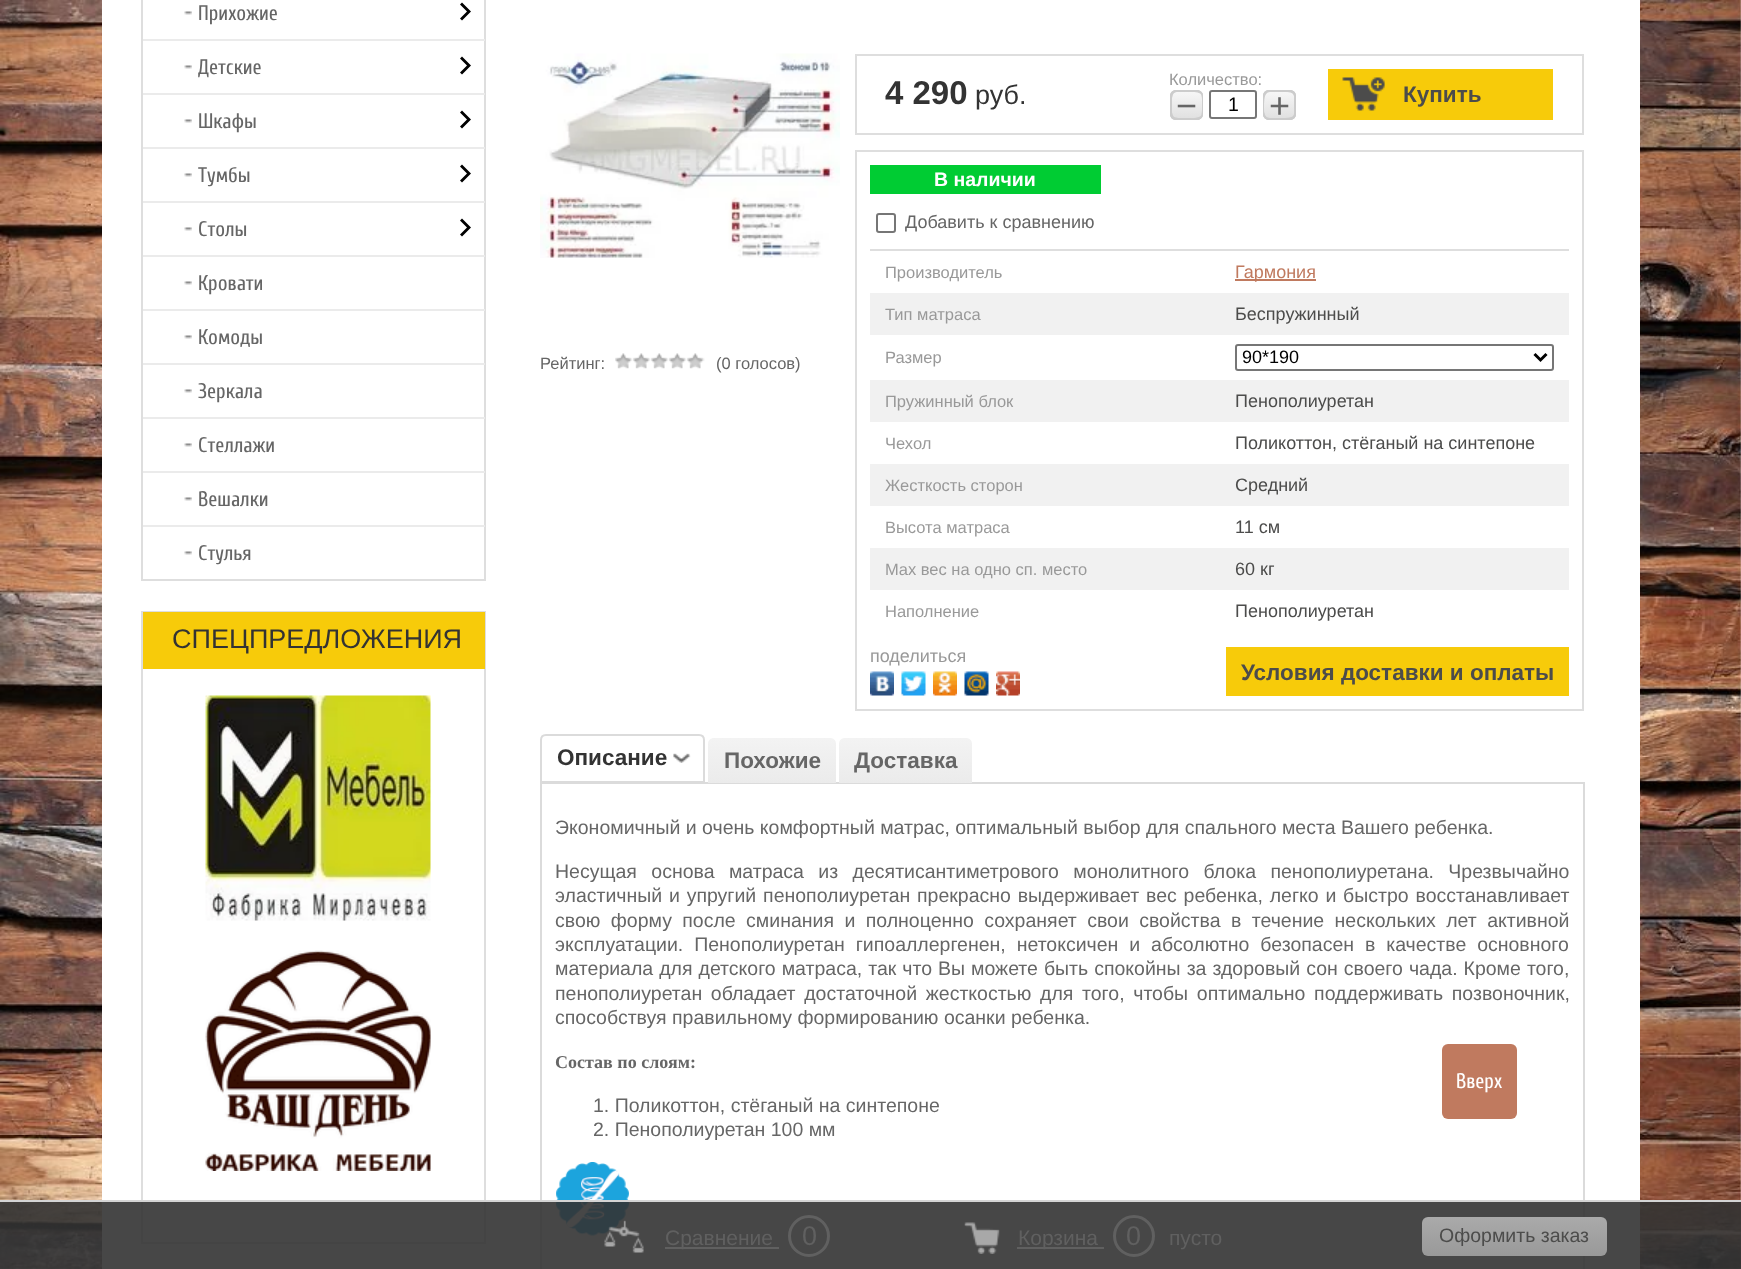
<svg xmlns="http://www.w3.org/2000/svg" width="1741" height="1269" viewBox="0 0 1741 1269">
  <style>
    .t1 { font: 21px Cuprum; fill: #666; }
    .t2 { font: 27px Liberation Sans; fill: #333; }
    .t3 { font: 16.5px Liberation Sans; fill: #666; }
    .t4 { font: bold 33px Liberation Sans; fill: #333; }
    .t5 { font: 16.5px Liberation Sans; fill: #999; }
    .t6 { font: 36px Liberation Sans; fill: #666; }
    .t7 { font: 19.5px Liberation Sans; fill: #000; }
    .t8 { font: bold 22.5px Liberation Sans; fill: #4c4c4b; }
    .t9 { font: bold 19.5px Liberation Sans; fill: #fff; }
    .t10 { font: 18px Liberation Sans; fill: #666; }
    .t11 { font: 18px Liberation Sans; fill: #c07a5f; }
    .t12 { font: 18px Liberation Sans; fill: #4c4c4b; }
    .t13 { font: 18px Liberation Sans; fill: #000; }
    .t14 { font: 18px Liberation Sans; fill: #999; }
    .t15 { font: bold 22.5px Liberation Sans; fill: #333; }
    .t16 { font: bold 22.5px Liberation Sans; fill: #666; }
    .t17 { font: 19.5px Liberation Sans; fill: #666; }
    .t18 { font: bold 18px Liberation Serif; fill: #666; }
    .t19 { font: 21px Liberation Sans; fill: #606060; }
    .t20 { font: 27px Liberation Sans; fill: #606060; }
    .t21 { font: 19.5px Liberation Sans; fill: #4c4c4b; }
    .t22 { font: 21px Cuprum; fill: #fff; }
  </style>
  <defs>
    <linearGradient id="g1" gradientUnits="userSpaceOnUse" x1="1187" y1="90" x2="1187" y2="120"><stop offset="0" stop-color="#f8f8f8"/><stop offset="1" stop-color="#dfdfdf"/></linearGradient>
    <linearGradient id="g2" gradientUnits="userSpaceOnUse" x1="1280" y1="90" x2="1280" y2="120"><stop offset="0" stop-color="#f8f8f8"/><stop offset="1" stop-color="#dfdfdf"/></linearGradient>
    <linearGradient id="g3" gradientUnits="userSpaceOnUse" x1="772" y1="738" x2="772" y2="783"><stop offset="0" stop-color="#f3f3f3"/><stop offset="1" stop-color="#ebebeb"/></linearGradient>
    <linearGradient id="g4" gradientUnits="userSpaceOnUse" x1="905" y1="738" x2="905" y2="783"><stop offset="0" stop-color="#f3f3f3"/><stop offset="1" stop-color="#ebebeb"/></linearGradient>
    <linearGradient id="g5" gradientUnits="userSpaceOnUse" x1="1514" y1="1217" x2="1514" y2="1256"><stop offset="0" stop-color="#aaa"/><stop offset="1" stop-color="#999"/></linearGradient>
  </defs>
  <rect width="100%" height="100%" fill="#fff"/>
  <image x="0" y="0" width="1741" height="1269" href="images/1.png"/>
  <rect x="102" y="0" width="1538" height="1269" fill="#fff"/>
  <rect x="142" y="-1" width="343" height="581" fill="none" stroke="#dedede" stroke-width="2"/>
  <image x="184" y="11" width="8" height="4" href="images/2.png"/>
  <text x="198" y="20" class="t1">Прихожие</text>
  <path d="M460 18.5L467 11.5L460 4.5L462 2.5L471 11.5L462 20.5Z" fill="#000"/>
  <rect x="143" y="39" width="342" height="2" fill="#ebebeb"/>
  <image x="184" y="65" width="8" height="4" href="images/2.png"/>
  <text x="198" y="74" class="t1">Детские</text>
  <path d="M460 72.5L467 65.5L460 58.5L462 56.5L471 65.5L462 74.5Z" fill="#000"/>
  <rect x="143" y="93" width="342" height="2" fill="#ebebeb"/>
  <image x="184" y="119" width="8" height="4" href="images/2.png"/>
  <text x="198" y="128" class="t1">Шкафы</text>
  <path d="M460 126.5L467 119.5L460 112.5L462 110.5L471 119.5L462 128.5Z" fill="#000"/>
  <rect x="143" y="147" width="342" height="2" fill="#ebebeb"/>
  <image x="184" y="173" width="8" height="4" href="images/2.png"/>
  <text x="198" y="182" class="t1">Тумбы</text>
  <path d="M460 180.5L467 173.5L460 166.5L462 164.5L471 173.5L462 182.5Z" fill="#000"/>
  <rect x="143" y="201" width="342" height="2" fill="#ebebeb"/>
  <image x="184" y="227" width="8" height="4" href="images/2.png"/>
  <text x="198" y="236" class="t1">Столы</text>
  <path d="M460 234.5L467 227.5L460 220.5L462 218.5L471 227.5L462 236.5Z" fill="#000"/>
  <rect x="143" y="255" width="342" height="2" fill="#ebebeb"/>
  <image x="184" y="281" width="8" height="4" href="images/2.png"/>
  <text x="198" y="290" class="t1">Кровати</text>
  <rect x="143" y="309" width="342" height="2" fill="#ebebeb"/>
  <image x="184" y="335" width="8" height="4" href="images/2.png"/>
  <text x="198" y="344" class="t1">Комоды</text>
  <rect x="143" y="363" width="342" height="2" fill="#ebebeb"/>
  <image x="184" y="389" width="8" height="4" href="images/2.png"/>
  <text x="198" y="398" class="t1">Зеркала</text>
  <rect x="143" y="417" width="342" height="2" fill="#ebebeb"/>
  <image x="184" y="443" width="8" height="4" href="images/2.png"/>
  <text x="198" y="452" class="t1">Стеллажи</text>
  <rect x="143" y="471" width="342" height="2" fill="#ebebeb"/>
  <image x="184" y="497" width="8" height="4" href="images/2.png"/>
  <text x="198" y="506" class="t1">Вешалки</text>
  <rect x="143" y="525" width="342" height="2" fill="#ebebeb"/>
  <image x="184" y="551" width="8" height="4" href="images/2.png"/>
  <text x="198" y="560" class="t1">Стулья</text>
  <rect x="142" y="612" width="343" height="631" fill="none" stroke="#dedede" stroke-width="2"/>
  <rect x="143" y="612" width="342" height="57" fill="#f7cb0a"/>
  <text x="172" y="648" class="t2">СПЕЦПРЕДЛОЖЕНИЯ</text>
  <image x="205" y="695" width="226" height="226" href="images/3.png"/>
  <image x="205" y="950" width="226" height="221" href="images/4.png"/>
  <image x="540" y="53" width="300" height="205" href="images/5.png"/>
  <text x="540" y="369" class="t3">Рейтинг:</text>
  <image x="615" y="353" width="90" height="16" href="images/6.png"/>
  <text x="716" y="369" class="t3">(0 голосов)</text>
  <rect x="856" y="55" width="727" height="79" fill="none" stroke="#dedede" stroke-width="2"/>
  <text x="885" y="104" class="t4">4 290</text>
  <text x="975" y="104" class="t2">руб.</text>
  <text x="1169" y="85" class="t5">Количество:</text>
  <rect x="1170" y="90" width="33" height="30" rx="6" fill="url(#g1)"/>
  <path d="M1173 91C1171 92 1170 94 1170 96V114C1170 117.5 1172.5 120 1176 120H1197C1199.5 120 1201.5 118.5 1202.5 116.5C1199 119 1190 118 1186.5 118C1183.5 118 1179 118.5 1176 117.5C1174.5 117.5 1173.5 116.5 1173 115.5L1172 112.5V94.5Z" fill="#ccc"/>
  <path d="M1174 92C1179.5 92 1196 91 1200 93.5C1201 94 1201.5 95 1201.5 96C1202.5 98 1202 111.5 1202 114.5L1201.5 118C1202.5 117 1203 115.5 1203 114V96C1203 92.5 1200.5 90 1197 90H1176C1174 90 1172 91 1171 93C1171.5 92.5 1172.5 92 1174 92Z" fill="#ccc"/>
  <path d="M1171 117C1172 119 1174 120 1176 120H1197C1200.5 120 1203 117.5 1203 114V96C1203 94.5 1202.5 93 1201.5 92L1202 95.5C1202 98.5 1202.5 112 1201.5 114C1201.5 115 1201 116 1200 116.5C1196 119 1187.5 118 1183 118H1177C1175 118 1172.5 118.5 1171 117Z" fill="#ccc"/>
  <path d="M1178 92H1195C1199 92 1201 92.5 1202.5 93.5C1201.5 91.5 1199.5 90 1197 90H1176C1172.5 90 1170 92.5 1170 96V114C1170 116.5 1171.5 118.5 1173 119.5C1172.5 118 1172 116 1172 114.5V98L1173 94.5C1174 92.5 1176 92 1178 92Z" fill="#ccc"/>
  <text x="1176" y="118" class="t6">−</text>
  <rect x="1210" y="91" width="46" height="27" rx="2" fill="none" stroke="#767676" stroke-width="2"/>
  <text x="1228" y="111" class="t7">1</text>
  <rect x="1263" y="90" width="33" height="30" rx="6" fill="url(#g2)"/>
  <path d="M1265 91.5C1264 92.5 1263 94 1263 96V114C1263 117.5 1265.5 120 1269 120H1290C1292.5 120 1294.5 118.5 1295.5 116.5C1291.5 119 1283 118 1279 118C1276 118 1270.5 118.5 1268 117.5L1266.5 117C1265 115.5 1264.5 113.5 1264 112C1263.5 108.5 1264 98.5 1264 95.5Z" fill="#ccc"/>
  <path d="M1268 92C1273 92 1289 91 1292.5 93.5C1293 94 1293.5 95 1294 96C1295 99 1294 103 1294 106.5L1294.5 115.5L1293.5 119C1295 117.5 1296 116 1296 114V96C1296 92.5 1293.5 90 1290 90H1269C1266.5 90 1264 91.5 1263.5 94C1264.5 93 1265.5 92 1268 92Z" fill="#ccc"/>
  <path d="M1263.5 116C1264.5 118.5 1266.5 120 1269 120H1290C1293.5 120 1296 117.5 1296 114V96C1296 94 1295 92.5 1293.5 91C1294.5 93 1294.5 95.5 1294 99V108.5C1294.5 114.5 1295 118 1285 118H1268C1266 118 1264.5 117.5 1263.5 116Z" fill="#ccc"/>
  <path d="M1270 92H1288C1291.5 92 1294 92.5 1295.5 93.5C1294.5 91.5 1292.5 90 1290 90H1269C1265.5 90 1263 92.5 1263 96V114C1263 116 1264 117.5 1265.5 119C1263.5 115.5 1263.5 98.5 1265.5 95C1266.5 93 1268 92 1270 92Z" fill="#ccc"/>
  <text x="1269" y="118" class="t6">+</text>
  <rect x="1328" y="69" width="225" height="51" fill="#f7cb0a"/>
  <image x="1342" y="77" width="43" height="34" href="images/7.png"/>
  <text x="1403" y="102" class="t8">Купить</text>
  <rect x="856" y="151" width="727" height="559" fill="none" stroke="#dedede" stroke-width="2"/>
  <rect x="870" y="165" width="231" height="29" fill="#0c3"/>
  <text x="934" y="186" class="t9">В наличии</text>
  <rect x="870" y="249" width="699" height="2" fill="#dedede"/>
  <rect x="877" y="214" width="18" height="18" rx="2" fill="none" stroke="#767676" stroke-width="2"/>
  <text x="905" y="228" class="t10">Добавить к сравнению</text>
  <text x="885" y="278" class="t5">Производитель</text>
  <rect x="1235" y="279" width="81" height="2" fill="#c07a5f"/>
  <text x="1235" y="278" class="t11">Гармония</text>
  <rect x="870" y="293" width="699" height="42" fill="#f1f1f1"/>
  <text x="885" y="320" class="t5">Тип матраса</text>
  <text x="1235" y="320" class="t12">Беспружинный</text>
  <text x="885" y="363" class="t5">Размер</text>
  <rect x="1236" y="345" width="317" height="25" rx="2" fill="none" stroke="#767676" stroke-width="2"/>
  <path d="M1534.5 354L1540.5 360L1546.5 354" fill="none" stroke="#000" stroke-width="3"/>
  <text x="1242" y="363" class="t13">90*190</text>
  <rect x="870" y="380" width="699" height="42" fill="#f1f1f1"/>
  <text x="885" y="407" class="t5">Пружинный блок</text>
  <text x="1235" y="407" class="t12">Пенополиуретан</text>
  <text x="885" y="449" class="t5">Чехол</text>
  <text x="1235" y="449" class="t12">Поликоттон, стёганый на синтепоне</text>
  <rect x="870" y="464" width="699" height="42" fill="#f1f1f1"/>
  <text x="885" y="491" class="t5">Жесткость сторон</text>
  <text x="1235" y="491" class="t12">Средний</text>
  <text x="885" y="533" class="t5">Высота матраса</text>
  <text x="1235" y="533" class="t12">11 см</text>
  <rect x="870" y="548" width="699" height="42" fill="#f1f1f1"/>
  <text x="885" y="575" class="t5">Max вес на одно сп. место</text>
  <text x="1235" y="575" class="t12">60 кг</text>
  <text x="885" y="617" class="t5">Наполнение</text>
  <text x="1235" y="617" class="t12">Пенополиуретан</text>
  <text x="870" y="662" class="t14">поделиться</text>
  <image x="870" y="671" width="24" height="25" href="images/8.png"/>
  <image x="901" y="671" width="25" height="25" href="images/9.png"/>
  <image x="933" y="671" width="24" height="25" href="images/10.png"/>
  <image x="964" y="671" width="25" height="25" href="images/11.png"/>
  <image x="996" y="671" width="24" height="25" href="images/12.png"/>
  <rect x="1226" y="647" width="343" height="49" fill="#f7cb0a"/>
  <text x="1241" y="680" class="t8">Условия доставки и оплаты</text>
  <rect x="540" y="782" width="1044" height="2" fill="#dbdbdb"/>
  <rect x="540" y="782" width="2" height="487" fill="#dbdbdb"/>
  <path d="M546 735H699C702 735 704 737 704 740V782H541V740C541 737 543 735 546 735Z" fill="#fff" stroke="#dbdbdb" stroke-width="2"/>
  <image x="673" y="753" width="18" height="10" href="images/13.png"/>
  <text x="557" y="765" class="t15">Описание</text>
  <path d="M714 738H830C833.5 738 836 740.5 836 744V783H708V744C708 740.5 710.5 738 714 738Z" fill="url(#g3)"/>
  <text x="724" y="768" class="t16">Похожие</text>
  <path d="M845 738H966C969.5 738 972 740.5 972 744V783H839V744C839 740.5 841.5 738 845 738Z" fill="url(#g4)"/>
  <text x="854" y="768" class="t16">Доставка</text>
  <rect x="1583" y="782" width="2" height="487" fill="#dbdbdb"/>
  <text x="555" y="834" class="t17">Экономичный и очень комфортный матрас, оптимальный выбор для спального места Вашего ребенка.</text>
  <text x="555" y="878" word-spacing="9" class="t17">Несущая основа матраса из десятисантиметрового монолитного блока пенополиуретана. Чрезвычайно</text>
  <text x="555" y="902" word-spacing="1.4" class="t17">эластичный и упругий пенополиуретан прекрасно выдерживает вес ребенка, легко и быстро восстанавливает</text>
  <text x="555" y="927" word-spacing="5" class="t17">свою форму после сминания и полноценно сохраняет свои свойства в течение нескольких лет активной</text>
  <text x="555" y="951" word-spacing="5.5" class="t17">эксплуатации. Пенополиуретан гипоаллергенен, нетоксичен и абсолютно безопасен в качестве основного</text>
  <text x="555" y="975" word-spacing="0.6" class="t17">материала для детского матраса, так что Вы можете быть спокойны за здоровый сон своего чада. Кроме того,</text>
  <text x="555" y="1000" word-spacing="3.25" class="t17">пенополиуретан обладает достаточной жесткостью для того, чтобы оптимально поддерживать позвоночник,</text>
  <text x="555" y="1024" class="t17">способствуя правильному формированию осанки ребенка.</text>
  <text x="555" y="1068" class="t18">Состав по слоям:</text>
  <text x="593" y="1112" class="t17">1. Поликоттон, стёганый на синтепоне</text>
  <text x="593" y="1136" class="t17">2. Пенополиуретан 100 мм</text>
  <image x="556" y="1162" width="73" height="74" href="images/14.png"/>
  <rect x="0" y="1202" width="1741" height="67" fill="#333333e6"/>
  <rect x="0" y="1200" width="1741" height="2" fill="#d4d4d4"/>
  <image x="604" y="1220" width="40" height="33" href="images/15.png"/>
  <rect x="665" y="1247" width="114" height="2" fill="#606060"/>
  <text x="665" y="1245" class="t19">Сравнение</text>
  <circle cx="809" cy="1236" r="19.5" fill="none" stroke="#606060" stroke-width="3"/>
  <text x="802" y="1245" class="t20">0</text>
  <image x="964" y="1222" width="36" height="32" href="images/16.png"/>
  <rect x="1017" y="1247" width="87" height="2" fill="#606060"/>
  <text x="1018" y="1245" class="t19">Корзина</text>
  <circle cx="1134" cy="1236" r="19.5" fill="none" stroke="#606060" stroke-width="3"/>
  <text x="1126" y="1245" class="t20">0</text>
  <text x="1169" y="1245" class="t19">пусто</text>
  <rect x="1422" y="1217" width="185" height="39" rx="6" fill="url(#g5)"/>
  <text x="1439" y="1242" class="t21">Оформить заказ</text>
  <rect x="1442" y="1044" width="75" height="75" rx="6" fill="#c07a5f"/>
  <text x="1456" y="1088" class="t22">Вверх</text>
</svg>
